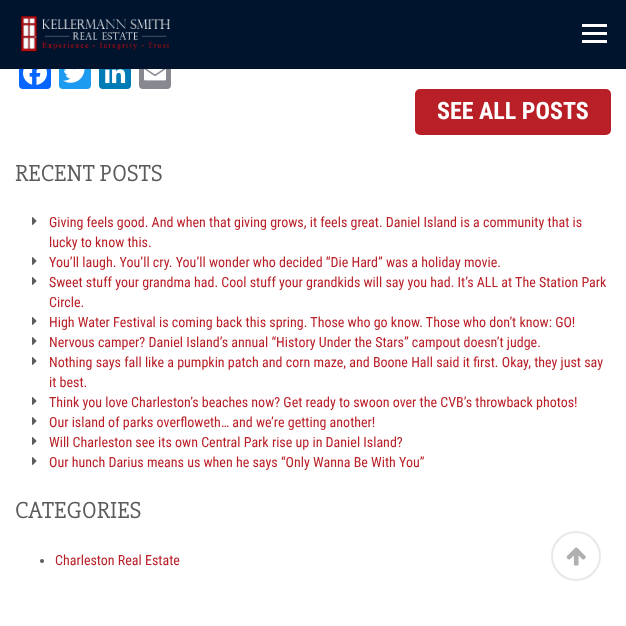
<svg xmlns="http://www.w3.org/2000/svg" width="626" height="626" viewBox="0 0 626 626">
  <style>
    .t1 { font: bold 24px Roboto Condensed; fill: #fff; }
    .t2 { font: 24px 'Slabo 27px'; fill: #5b5b5b; }
    .t3 { font: 14px Roboto Condensed; fill: #b91f27; }
  </style>
  <rect width="100%" height="100%" fill="#fff"/>
  <rect x="19" y="57" width="32" height="32" rx="4" fill="#0866ff"/>
  <rect x="59" y="57" width="32" height="32" rx="4" fill="#1d9bf0"/>
  <rect x="99" y="57" width="32" height="32" rx="4" fill="#007bb5"/>
  <rect x="139" y="57" width="32" height="32" rx="4" fill="#888990"/>
  <rect x="0" y="0" width="626" height="69" fill="#00142d"/>
  <image x="20" y="16" width="150" height="36" href="images/1.png"/>
  <rect x="582" y="24" width="25" height="3" fill="#fff"/>
  <rect x="582" y="32" width="25" height="3" fill="#fff"/>
  <rect x="582" y="40" width="25" height="3" fill="#fff"/>
  <image x="23" y="69" width="24" height="16" href="images/2.png"/>
  <image x="63" y="69" width="22" height="14" href="images/3.png"/>
  <image x="105" y="69" width="21" height="15" href="images/4.png"/>
  <image x="144" y="69" width="22" height="12" href="images/5.png"/>
  <rect x="416" y="90" width="194" height="44" rx="4" fill="#b91f27" stroke="#b91f27" stroke-width="2"/>
  <text x="437" y="119" class="t1">SEE ALL POSTS</text>
  <text x="15" y="181" class="t2">RECENT POSTS</text>
  <image x="32" y="217" width="5" height="8" href="images/6.png"/>
  <text x="49" y="227" class="t3">Giving feels good. And when that giving grows, it feels great. Daniel Island is a community that is</text>
  <text x="49" y="247" class="t3">lucky to know this.</text>
  <image x="32" y="257" width="5" height="8" href="images/6.png"/>
  <text x="49" y="267" class="t3">You’ll laugh. You’ll cry. You’ll wonder who decided “Die Hard” was a holiday movie.</text>
  <image x="32" y="277" width="5" height="8" href="images/6.png"/>
  <text x="49" y="287" class="t3">Sweet stuff your grandma had. Cool stuff your grandkids will say you had. It’s ALL at The Station Park</text>
  <text x="49" y="307" class="t3">Circle.</text>
  <image x="32" y="317" width="5" height="8" href="images/6.png"/>
  <text x="49" y="327" class="t3">High Water Festival is coming back this spring. Those who go know. Those who don’t know: GO!</text>
  <image x="32" y="337" width="5" height="8" href="images/6.png"/>
  <text x="49" y="347" class="t3">Nervous camper? Daniel Island’s annual “History Under the Stars” campout doesn’t judge.</text>
  <image x="32" y="357" width="5" height="8" href="images/6.png"/>
  <text x="49" y="367" class="t3">Nothing says fall like a pumpkin patch and corn maze, and Boone Hall said it first. Okay, they just say</text>
  <text x="49" y="387" class="t3">it best.</text>
  <image x="32" y="397" width="5" height="8" href="images/6.png"/>
  <text x="49" y="407" class="t3">Think you love Charleston’s beaches now? Get ready to swoon over the CVB’s throwback photos!</text>
  <image x="32" y="417" width="5" height="8" href="images/6.png"/>
  <text x="49" y="427" class="t3">Our island of parks overfloweth… and we’re getting another!</text>
  <image x="32" y="437" width="5" height="8" href="images/6.png"/>
  <text x="49" y="447" class="t3">Will Charleston see its own Central Park rise up in Daniel Island?</text>
  <image x="32" y="457" width="5" height="8" href="images/6.png"/>
  <text x="49" y="467" class="t3">Our hunch Darius means us when he says “Only Wanna Be With You”</text>
  <text x="15" y="518" class="t2">CATEGORIES</text>
  <circle cx="42" cy="561" r="2" fill="#5b5b5b"/>
  <text x="55" y="565" class="t3">Charleston Real Estate</text>
  <circle cx="576" cy="556" r="24" fill="none" stroke="#e8e8e8" stroke-width="2"/>
  <image x="566" y="547" width="20" height="19" href="images/7.png"/>
</svg>
